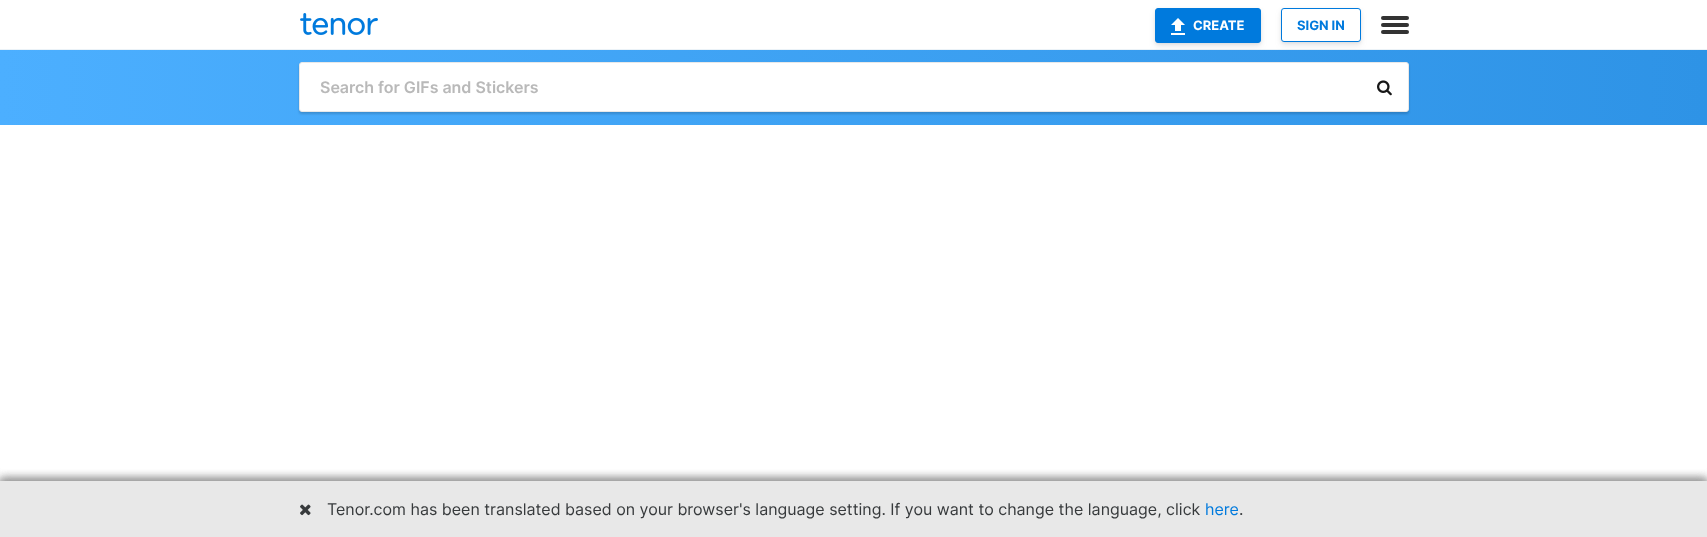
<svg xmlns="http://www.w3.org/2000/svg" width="1707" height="537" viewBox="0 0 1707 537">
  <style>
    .t1 { font: bold 13px Inter; fill: #fff; }
    .t2 { font: bold 13px Inter; fill: #007add; }
    .t3 { font: 600 16px Inter; fill: #b9b9b9; }
    .t4 { font: 16px Inter; fill: #373a3c; }
    .t5 { font: 16px Inter; fill: #007add; }
  </style>
  <defs>
    <linearGradient id="g1" gradientUnits="userSpaceOnUse" x1="0" y1="88" x2="1707" y2="87"><stop offset="0" stop-color="#4cafff"/><stop offset="1" stop-color="#2e93e6"/></linearGradient>
  </defs>
  <rect width="100%" height="100%" fill="#fff"/>
  <rect x="0" y="49" width="1707" height="1" fill="#ebf2f7"/>
  <image x="300" y="13" width="78" height="22" href="images/1.png"/>
  <rect x="1155" y="12" width="106" height="35" rx="3" fill="#53535c1c" filter="blur(3px)"/>
  <rect x="1155" y="9" width="106" height="35" rx="3" fill="#00000014" filter="blur(1.5px)"/>
  <rect x="1155.5" y="8.5" width="105" height="34" rx="2.5" fill="#007add" stroke="#007add"/>
  <image x="1171" y="18" width="14" height="17" href="images/2.png"/>
  <text x="1193" y="30" class="t1">CREATE</text>
  <rect x="1281" y="12" width="80" height="34" rx="3" fill="#53535c1c" filter="blur(3px)"/>
  <rect x="1281" y="9" width="80" height="34" rx="3" fill="#00000014" filter="blur(1.5px)"/>
  <rect x="1281.5" y="8.5" width="79" height="33" rx="2.5" fill="#fff" stroke="#007add"/>
  <text x="1297" y="30" class="t2">SIGN IN</text>
  <rect x="1381" y="23" width="28" height="4" rx="2" fill="#333"/>
  <rect x="1381" y="16" width="28" height="4" rx="2" fill="#333"/>
  <rect x="1381" y="30" width="28" height="4" rx="2" fill="#333"/>
  <rect x="0" y="50" width="1707" height="75" fill="url(#g1)"/>
  <rect x="299" y="64" width="1110" height="50" rx="3" fill="#00000029" filter="blur(1px)"/>
  <rect x="299.5" y="62.5" width="1109" height="49" rx="2.5" fill="#fff" stroke="#e8e8e8"/>
  <text x="320" y="93" class="t3">Search for GIFs and Stickers</text>
  <image x="1377" y="80" width="15" height="16" href="images/3.png"/>
  <rect x="0" y="479" width="1707" height="56" fill="#999" filter="blur(5px)"/>
  <rect x="0" y="479" width="1707" height="56" fill="#999" filter="blur(5px)"/>
  <rect x="0" y="481" width="1707" height="56" fill="#e8e8e8"/>
  <image x="300" y="504" width="11" height="12" href="images/4.png"/>
  <text x="327" y="515" class="t4">Tenor.com has been translated based on your browser's language setting. If you want to change the language, click</text>
  <text x="1205" y="515" class="t5">here</text>
  <text x="1239" y="515" class="t4">.</text>
</svg>
